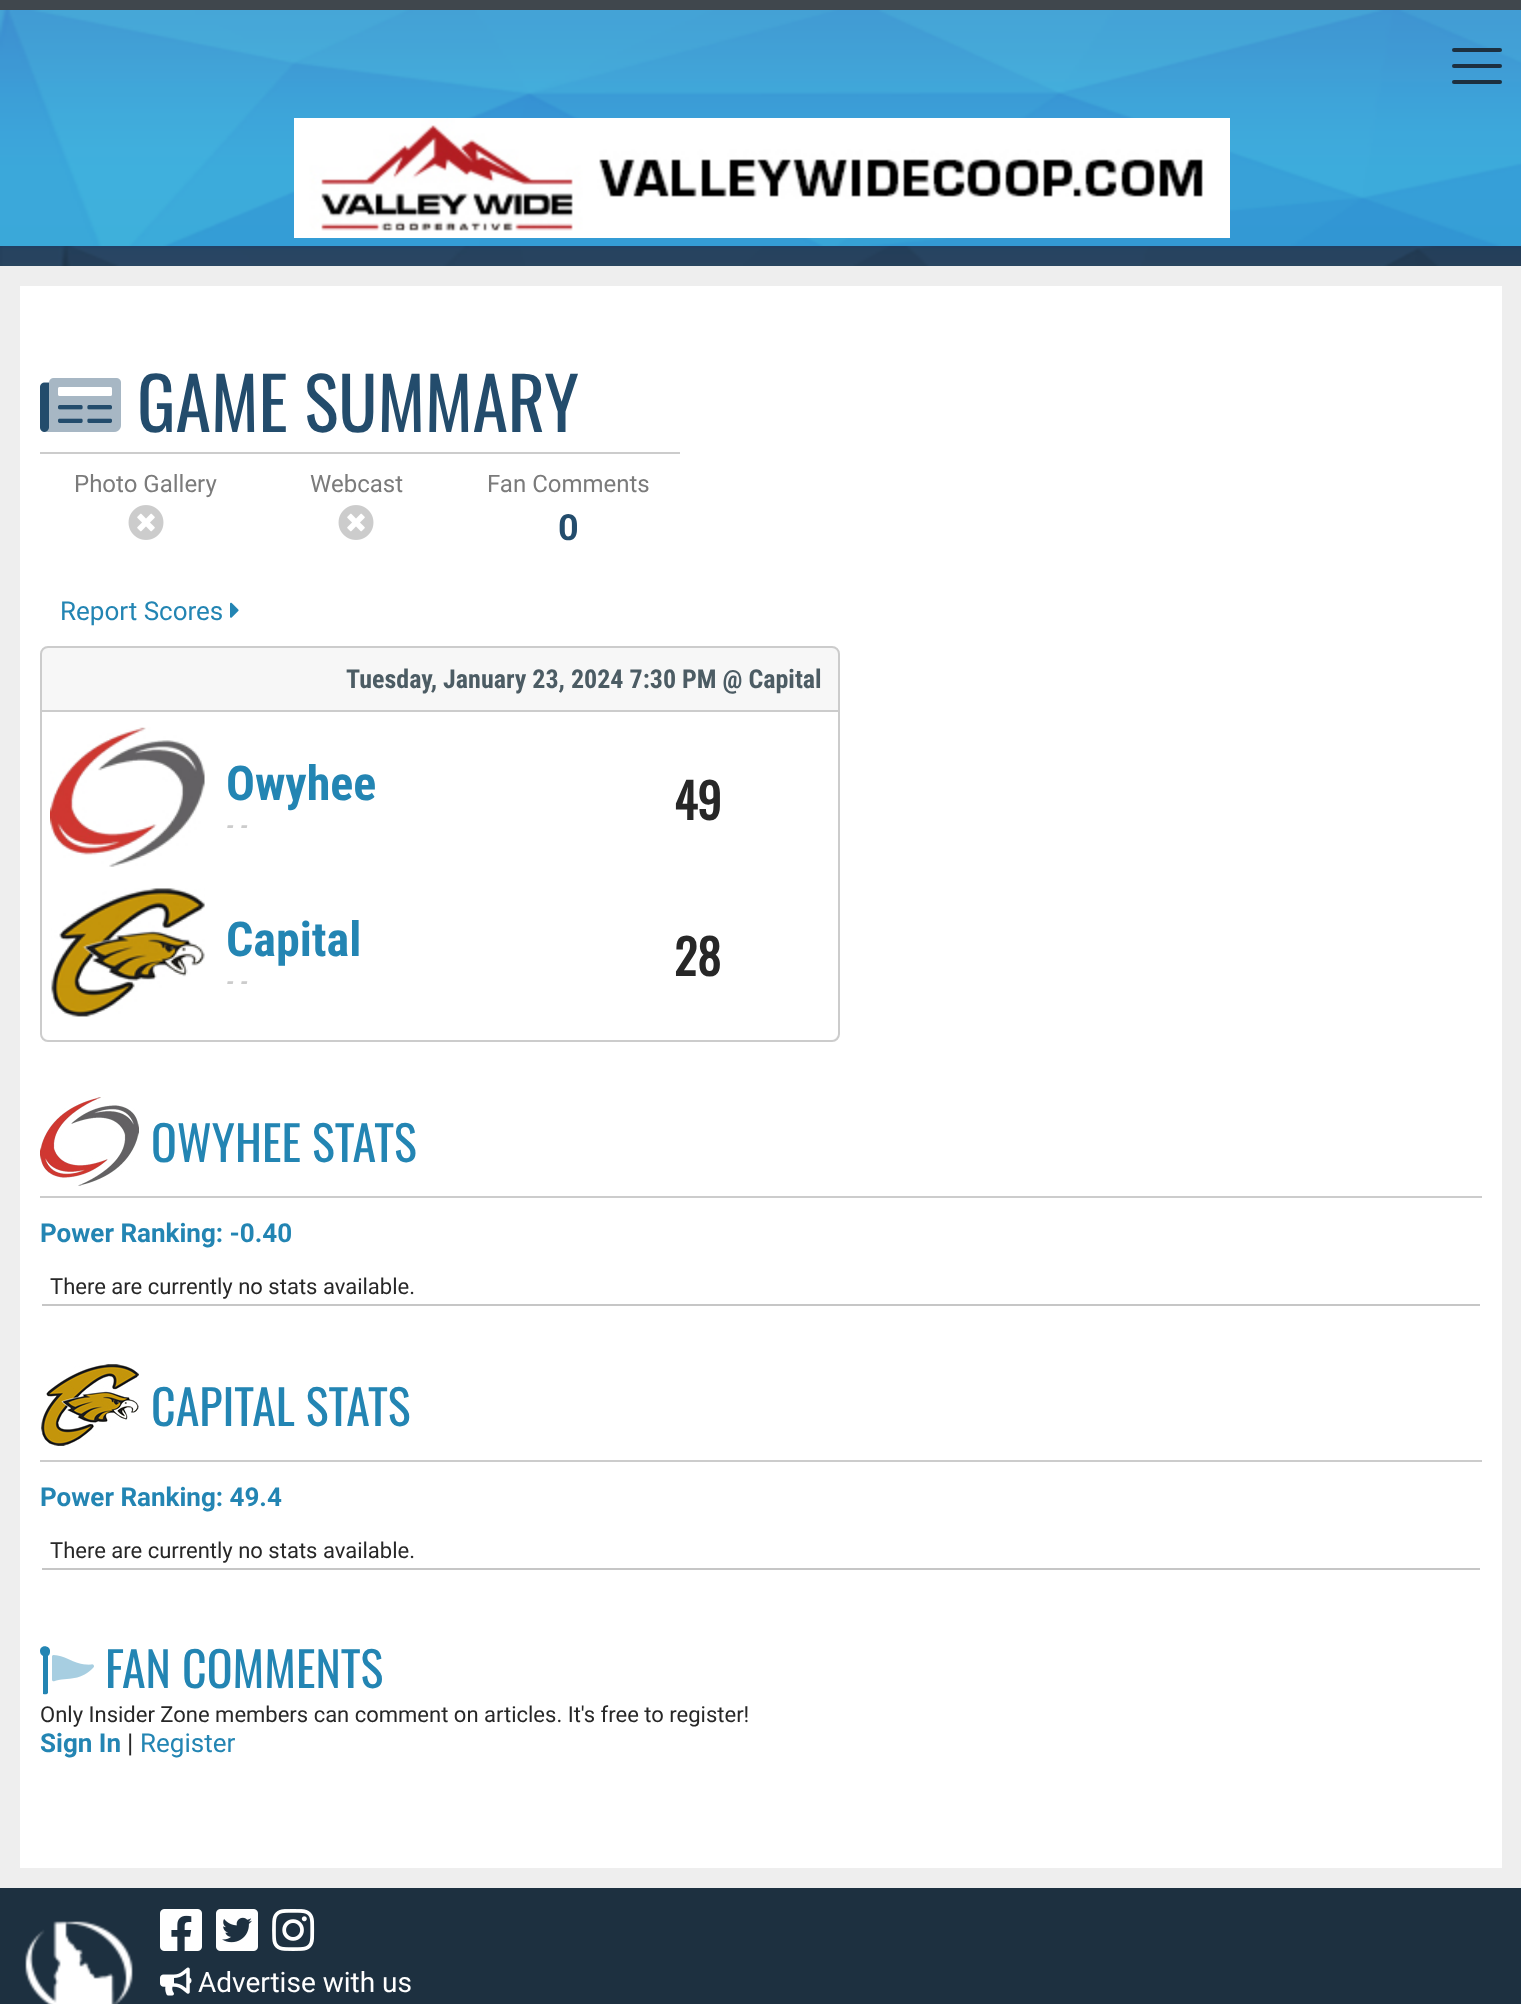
<svg xmlns="http://www.w3.org/2000/svg" width="1521" height="2004" viewBox="0 0 1521 2004">
  <style>
    .t1 { font: 72px Oswald; fill: #234c6c; }
    .t2 { font: 24px Roboto; fill: #7b7b7b; }
    .t3 { font: bold 36px Roboto; fill: #234c6c; }
    .t4 { font: 26px Roboto; fill: #2385b3; }
    .t5 { font: bold 26px Roboto Condensed; fill: #4c5c64; }
    .t6 { font: bold 48px Roboto Condensed; fill: #2385b3; }
    .t7 { font: italic bold 24px Roboto Condensed; fill: #ccc; }
    .t8 { font: bold 48px Oswald; fill: #272727; }
    .t9 { font: 48px Oswald; fill: #2385b3; }
    .t10 { font: bold 26px Roboto; fill: #2385b3; }
    .t11 { font: 22px Roboto; fill: #272727; }
    .t12 { font: 26px Roboto; fill: #272727; }
    .t13 { font: 28px Roboto; fill: #fff; }
  </style>
  <rect width="100%" height="100%" fill="#fff"/>
  <image x="0" y="0" width="1521" height="10" href="images/1.png"/>
  <image x="0" y="10" width="1521" height="236" href="images/2.png"/>
  <image x="294" y="118" width="936" height="120" href="images/3.png"/>
  <image x="0" y="246" width="1521" height="20" href="images/4.png"/>
  <rect x="1452" y="48" width="50" height="4" rx="2" fill="#1d3040"/>
  <rect x="1452" y="64" width="50" height="4" rx="2" fill="#1d3040"/>
  <rect x="1452" y="80" width="50" height="4" rx="2" fill="#1d3040"/>
  <rect x="0" y="266" width="1521" height="1622" fill="#eee"/>
  <rect x="20" y="286" width="1482" height="1582" fill="#fff"/>
  <rect x="40" y="452" width="640" height="2" fill="#ccc"/>
  <image x="40" y="382" width="72" height="50" href="images/6.png"/>
  <image x="46" y="378" width="75" height="54" href="images/5.png"/>
  <text x="137" y="432" class="t1">GAME SUMMARY</text>
  <text x="74" y="492" class="t2">Photo Gallery</text>
  <image x="128" y="505" width="36" height="35" href="images/7.png"/>
  <text x="310" y="492" class="t2">Webcast</text>
  <image x="338" y="505" width="36" height="35" href="images/7.png"/>
  <text x="487" y="492" class="t2">Fan Comments</text>
  <text x="558" y="540" class="t3">0</text>
  <text x="60" y="620" class="t4">Report Scores</text>
  <image x="230" y="602" width="9" height="16" href="images/8.png"/>
  <rect x="41" y="647" width="798" height="394" rx="7" fill="#f7f7f7" stroke="#ccc" stroke-width="2"/>
  <text x="346" y="688" class="t5">Tuesday, January 23, 2024 7:30 PM @ Capital</text>
  <path d="M42 710H838V1032C838 1036.5 834.5 1040 830 1040H50C45.5 1040 42 1036.5 42 1032Z" fill="#fff"/>
  <rect x="42" y="710" width="796" height="2" fill="#ccc"/>
  <image x="50" y="727" width="155" height="140" href="images/9.png"/>
  <text x="226" y="800" class="t6">Owyhee</text>
  <text x="226" y="834" class="t7">- -</text>
  <text x="674" y="820" class="t8">49</text>
  <image x="51" y="888" width="154" height="129" href="images/10.png"/>
  <text x="226" y="956" class="t6">Capital</text>
  <text x="226" y="990" class="t7">- -</text>
  <text x="674" y="976" class="t8">28</text>
  <image x="40" y="1097" width="99" height="89" href="images/11.png"/>
  <text x="151" y="1162" class="t9">OWYHEE STATS</text>
  <rect x="40" y="1196" width="1442" height="2" fill="#ccc"/>
  <text x="40" y="1242" class="t10">Power Ranking: -0.40</text>
  <rect x="42" y="1304" width="1438" height="2" fill="#c6c6c6"/>
  <text x="50" y="1294" class="t11">There are currently no stats available.</text>
  <image x="41" y="1364" width="98" height="82" href="images/12.png"/>
  <text x="151" y="1426" class="t9">CAPITAL STATS</text>
  <rect x="40" y="1460" width="1442" height="2" fill="#ccc"/>
  <text x="40" y="1506" class="t10">Power Ranking: 49.4</text>
  <rect x="42" y="1568" width="1438" height="2" fill="#c6c6c6"/>
  <text x="50" y="1558" class="t11">There are currently no stats available.</text>
  <path d="M40 1651C40 1644 51 1645 50 1652C50 1654 49 1655 48 1656V1693C47 1695 44 1694 43 1694V1656C41 1655 40 1653 40 1651Z" fill="#2385b3"/>
  <image x="52" y="1655" width="42" height="27" href="images/13.png"/>
  <text x="105" y="1688" class="t9">FAN COMMENTS</text>
  <text x="40" y="1722" class="t11">Only Insider Zone members can comment on articles. It's free to register!</text>
  <text x="40" y="1752" class="t10">Sign In</text>
  <text x="127" y="1752" class="t12">|</text>
  <text x="140" y="1752" class="t4">Register</text>
  <rect x="0" y="1888" width="1521" height="116" fill="#1d3040"/>
  <image x="25" y="1921" width="108" height="83" href="images/14.png"/>
  <image x="160" y="1909" width="42" height="42" href="images/15.png"/>
  <image x="216" y="1909" width="42" height="42" href="images/16.png"/>
  <image x="272" y="1909" width="43" height="42" href="images/17.png"/>
  <image x="160" y="1967" width="32" height="29" href="images/18.png"/>
  <text x="198" y="1992" class="t13">Advertise with us</text>
</svg>
